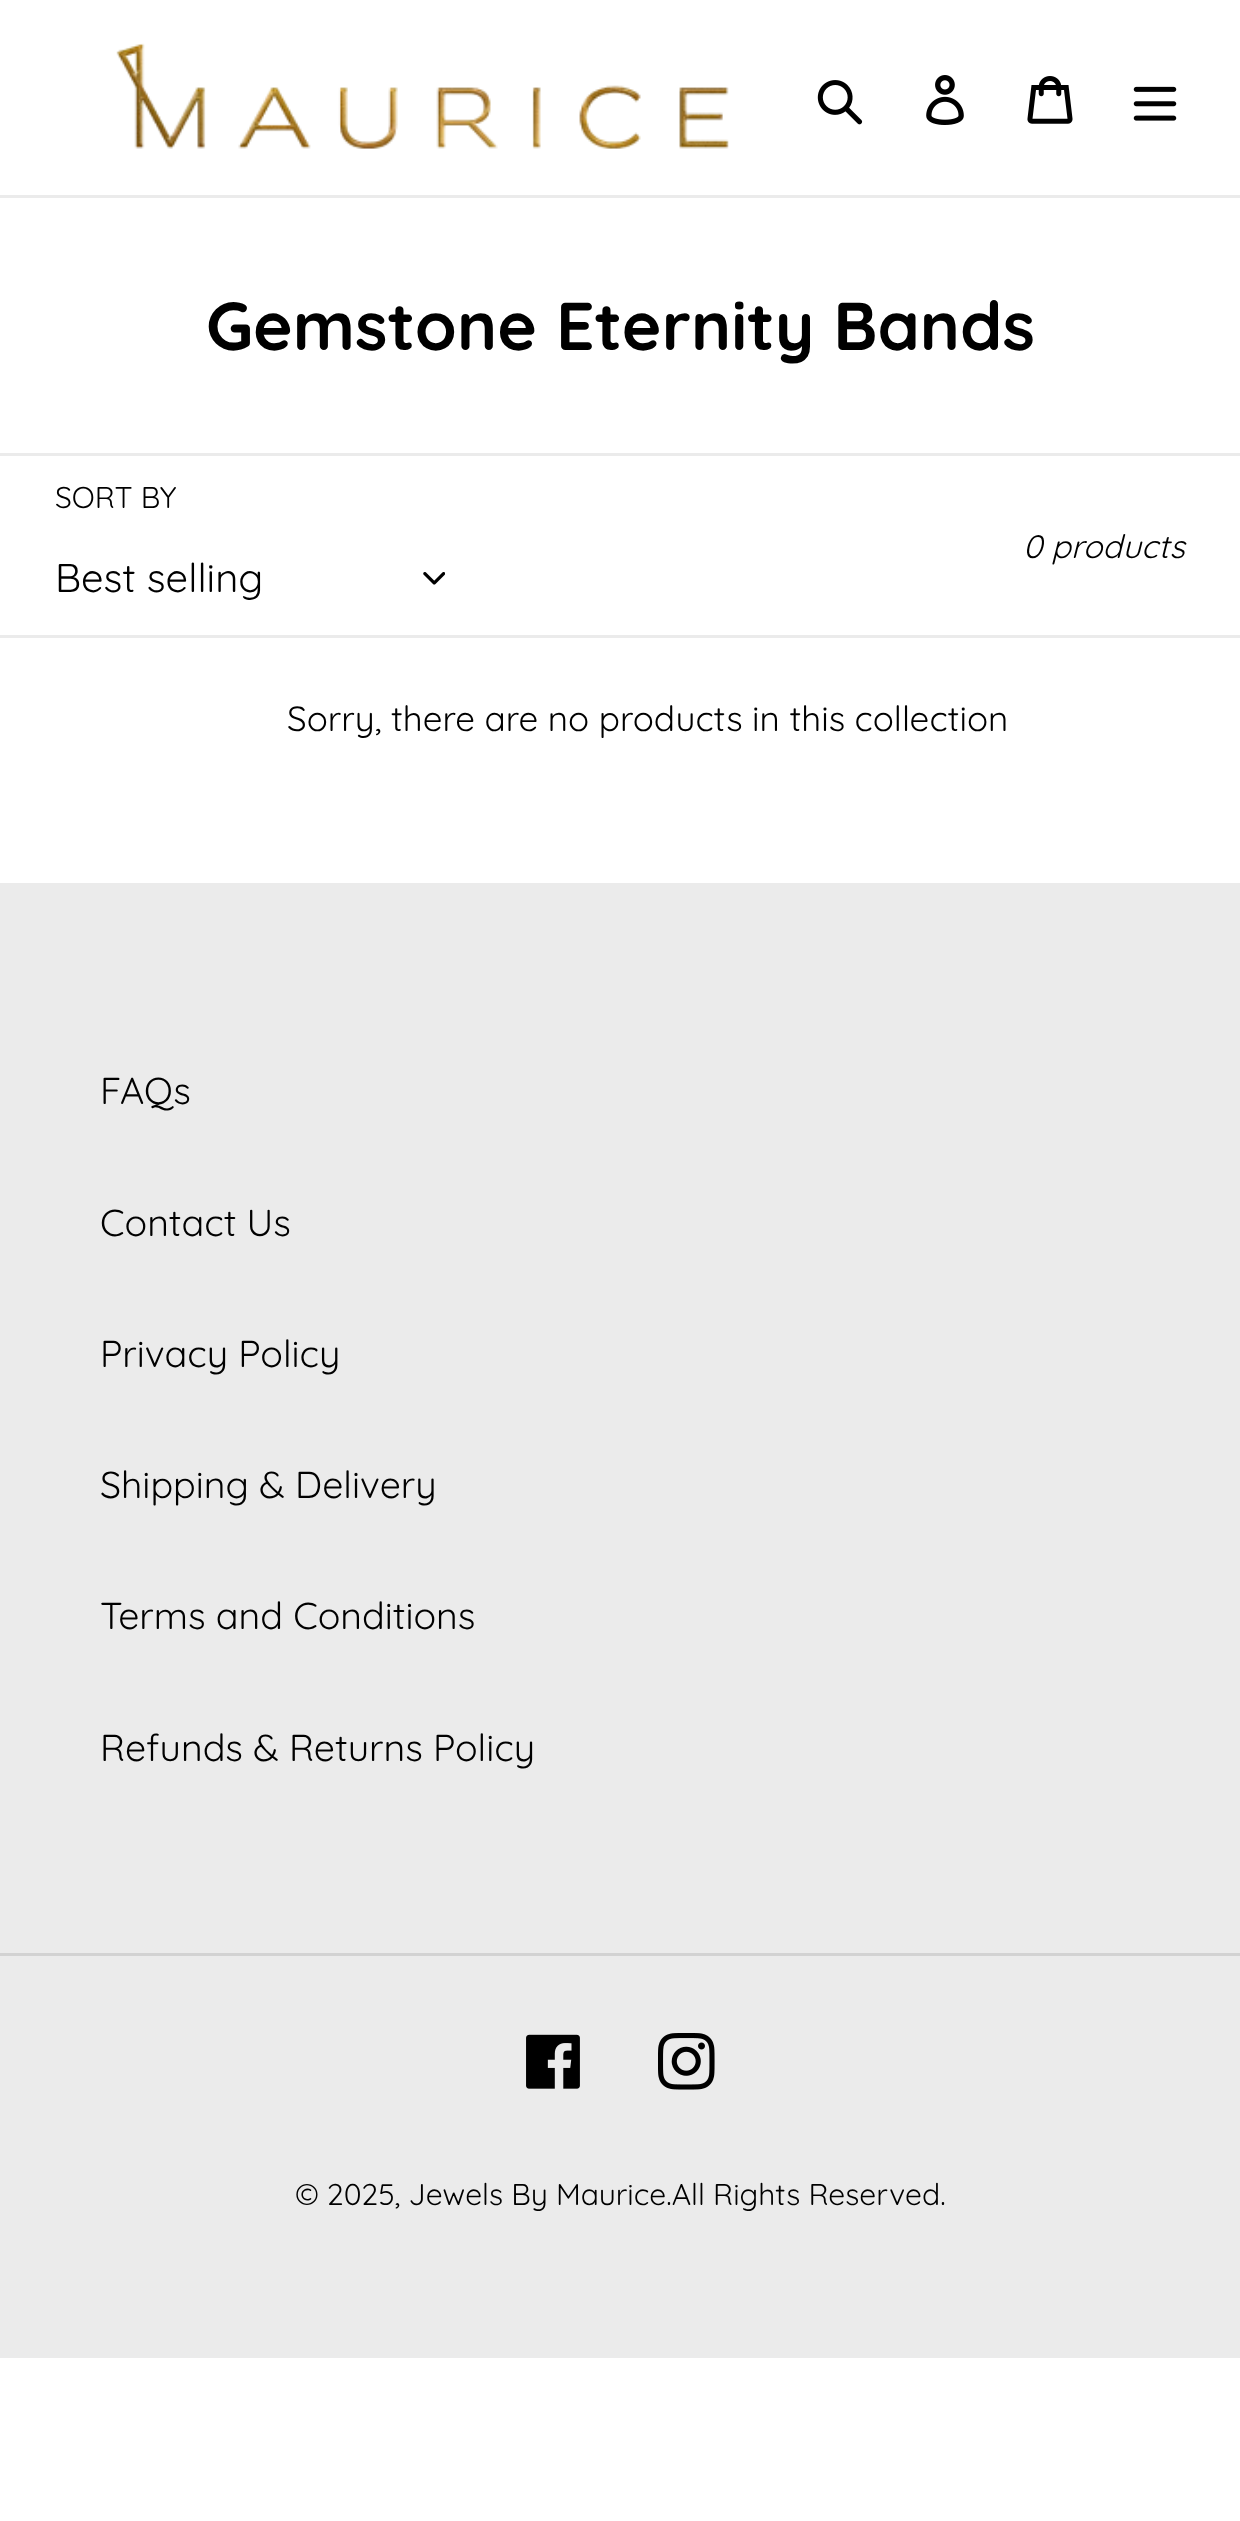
<svg xmlns="http://www.w3.org/2000/svg" width="1240" height="2521" viewBox="0 0 1240 2521">
  <style>
    .t1 { font: 300 67.5px Quicksand; fill: #000; }
    .t2 { font: 30px Quicksand; fill: #000; }
    .t3 { font: 40px Quicksand; fill: #000; }
    .t4 { font: italic 32.5px Quicksand; fill: #000; }
    .t5 { font: 35px Quicksand; fill: #000; }
    .t6 { font: 37.5px Quicksand; fill: #000; }
  </style>
  <rect width="100%" height="100%" fill="#fff"/>
  <rect x="0" y="195" width="1240" height="3" fill="#ebebeb"/>
  <image x="116" y="43" width="613" height="106" href="images/1.png"/>
  <image x="817" y="80" width="46" height="45" href="images/2.png"/>
  <image x="926" y="75" width="38" height="50" href="images/3.png"/>
  <image x="1027" y="76" width="46" height="48" href="images/4.png"/>
  <image x="1133" y="86" width="44" height="35" href="images/5.png"/>
  <text x="206" y="350" class="t1">Gemstone Eternity Bands</text>
  <rect x="0" y="453" width="1240" height="3" fill="#ebebeb"/>
  <rect x="0" y="635" width="1240" height="3" fill="#ebebeb"/>
  <text x="55" y="508" class="t2">SORT BY</text>
  <text x="55" y="592" class="t3">Best selling</text>
  <image x="423" y="572" width="22" height="13" href="images/6.png"/>
  <text x="1023" y="558" class="t4">0 products</text>
  <text x="287" y="731" class="t5">Sorry, there are no products in this collection</text>
  <rect x="0" y="883" width="1240" height="1475" fill="#ebebeb"/>
  <text x="100" y="1104" class="t6">FAQs</text>
  <text x="100" y="1236" class="t6">Contact Us</text>
  <text x="100" y="1367" class="t6">Privacy Policy</text>
  <text x="100" y="1498" class="t6">Shipping &amp; Delivery</text>
  <text x="100" y="1629" class="t6">Terms and Conditions</text>
  <text x="100" y="1761" class="t6">Refunds &amp; Returns Policy</text>
  <rect x="0" y="1953" width="1240" height="3" fill="#d2d2d2"/>
  <image x="526" y="2034" width="54" height="55" href="images/7.png"/>
  <image x="658" y="2033" width="57" height="57" href="images/8.png"/>
  <text x="295" y="2205" class="t2">© 2025, Jewels By Maurice.All Rights Reserved.</text>
</svg>
